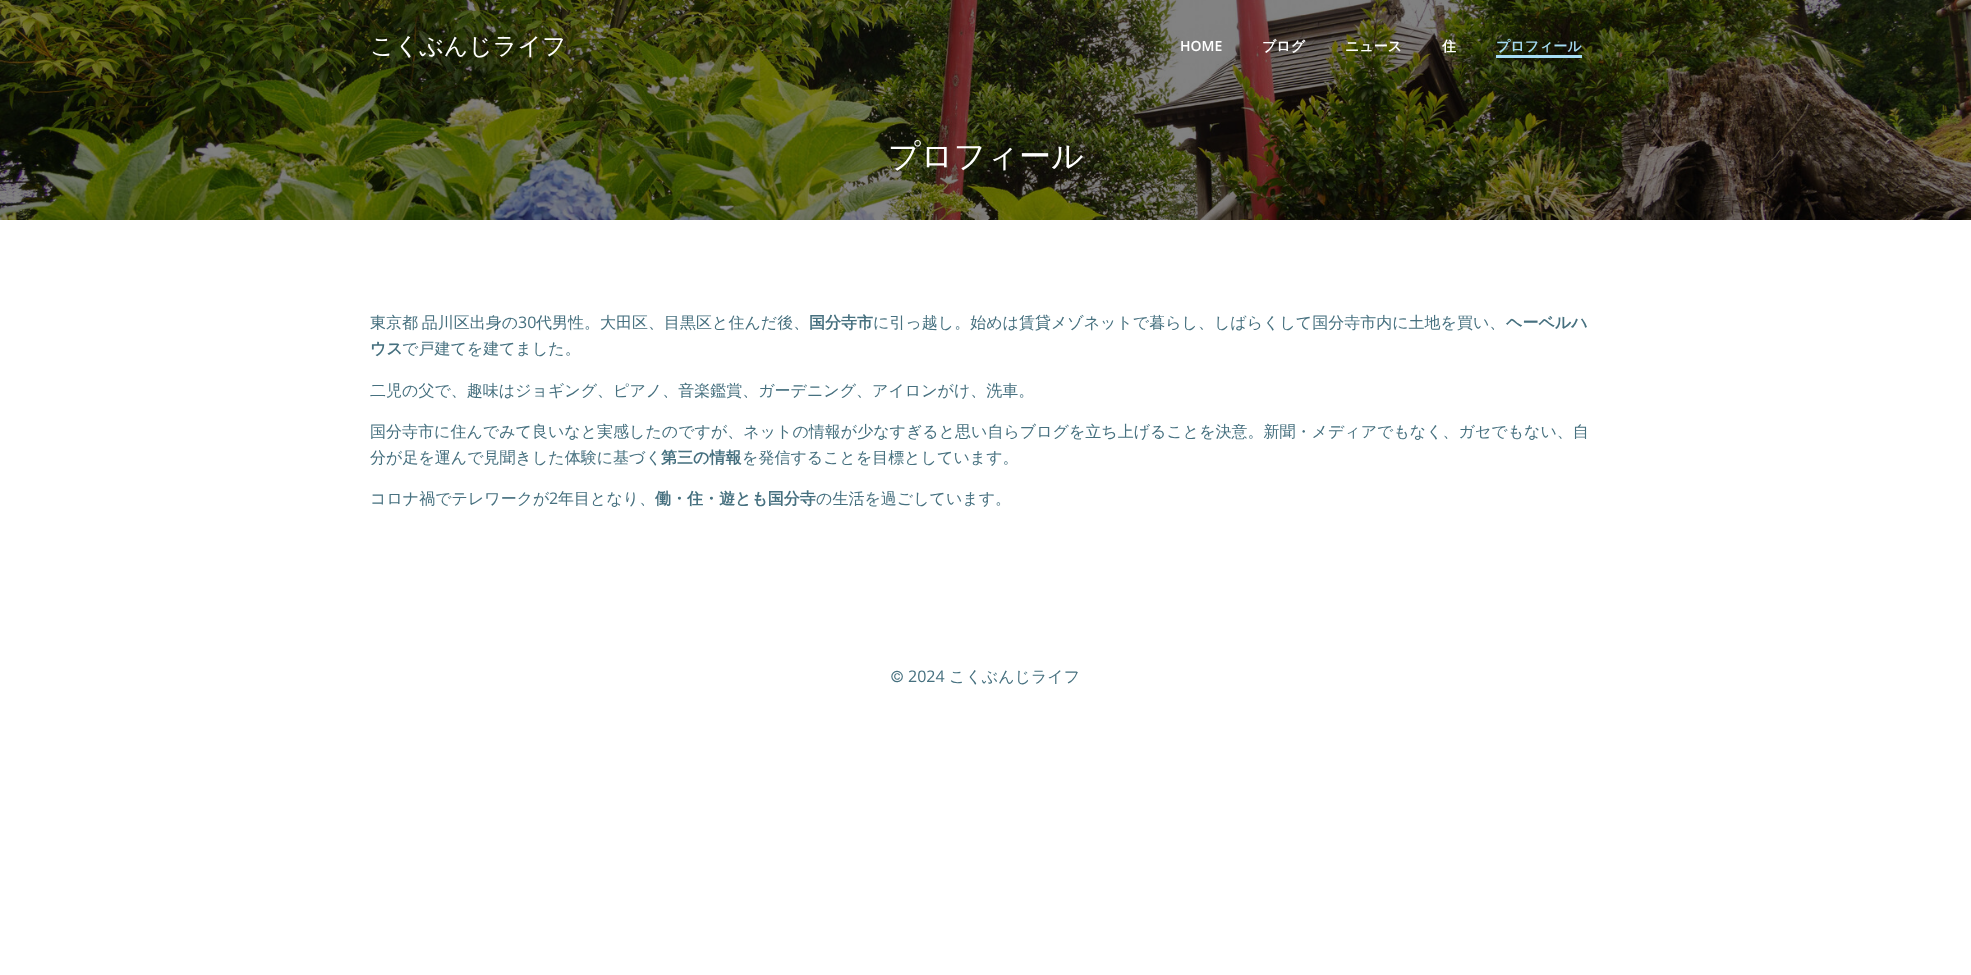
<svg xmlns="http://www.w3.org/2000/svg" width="1971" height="975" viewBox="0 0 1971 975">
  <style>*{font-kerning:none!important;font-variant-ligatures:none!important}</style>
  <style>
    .t1 { font: 500 24px WenQuanYi Zen Hei; fill: #fff; }
    .t2 { font: 600 14px Open Sans; fill: #fff; }
    .t3 { font: bold 14px WenQuanYi Zen Hei; fill: #fff; }
    .t4 { font: bold 14px WenQuanYi Zen Hei; fill: #a6dcf4; }
    .t5 { font: 500 32px WenQuanYi Zen Hei; fill: #fff; }
    .t6 { font: 500 16px WenQuanYi Zen Hei; fill: #46707f; }
    .t7 { font: 16px Open Sans; fill: #46707f; }
    .t8 { font: bold 16px WenQuanYi Zen Hei; fill: #46707f; }
  </style>
  <rect width="100%" height="100%" fill="#fff"/>
  <image x="0" y="0" width="1971" height="220" href="images/1.png"/>
  <text x="370" y="54" class="t1">こくぶんじライフ</text>
  <text x="1180" y="51" class="t2">HOME</text>
  <text x="1262" y="51" class="t3">ブログ</text>
  <text x="1345" y="51" class="t3">ニュース</text>
  <text x="1442" y="51" class="t3">住</text>
  <text x="1496" y="51" class="t4">プロフィール</text>
  <rect x="1496" y="55" width="86" height="3" fill="#a6dcf4"/>
  <text x="888" y="167" class="t5">プロフィール</text>
  <text x="370" y="328" word-spacing="-1" class="t6">東京都 品川区出身の</text>
  <text x="518" y="328" class="t7">30</text>
  <text x="536" y="328" class="t6">代男性。大田区、目黒区と住んだ後、</text>
  <text x="809" y="328" class="t8">国分寺市</text>
  <text x="873" y="328" class="t6">に引っ越し。始めは賃貸メゾネットで暮らし、しばらくして国分寺市内に土地を買い、</text>
  <text x="1506" y="328" class="t8">ヘーベルハ</text>
  <text x="370" y="354" class="t8">ウス</text>
  <text x="402" y="354" class="t6">で戸建てを建てました。</text>
  <text x="370" y="396" class="t6">二児の父で、趣味はジョギング、ピアノ、音楽鑑賞、ガーデニング、アイロンがけ、洗車。</text>
  <text x="370" y="437" class="t6">国分寺市に住んでみて良いなと実感したのですが、ネットの情報が少なすぎると思い自らブログを立ち上げることを決意。新聞・メディアでもなく、ガセでもない、自</text>
  <text x="370" y="463" class="t6">分が足を運んで見聞きした体験に基づく</text>
  <text x="661" y="463" class="t8">第三の情報</text>
  <text x="742" y="463" class="t6">を発信することを目標としています。</text>
  <text x="370" y="504" class="t6">コロナ禍でテレワークが</text>
  <text x="549" y="504" class="t7">2</text>
  <text x="558" y="504" class="t6">年目となり、</text>
  <text x="655" y="504" class="t8">働・住・遊とも国分寺</text>
  <text x="816" y="504" class="t6">の生活を過ごしています。</text>
  <text x="891" y="682" class="t6">©</text>
  <text x="908" y="682" class="t7">2024</text>
  <text x="949" y="682" class="t6">こくぶんじライフ</text>
</svg>
